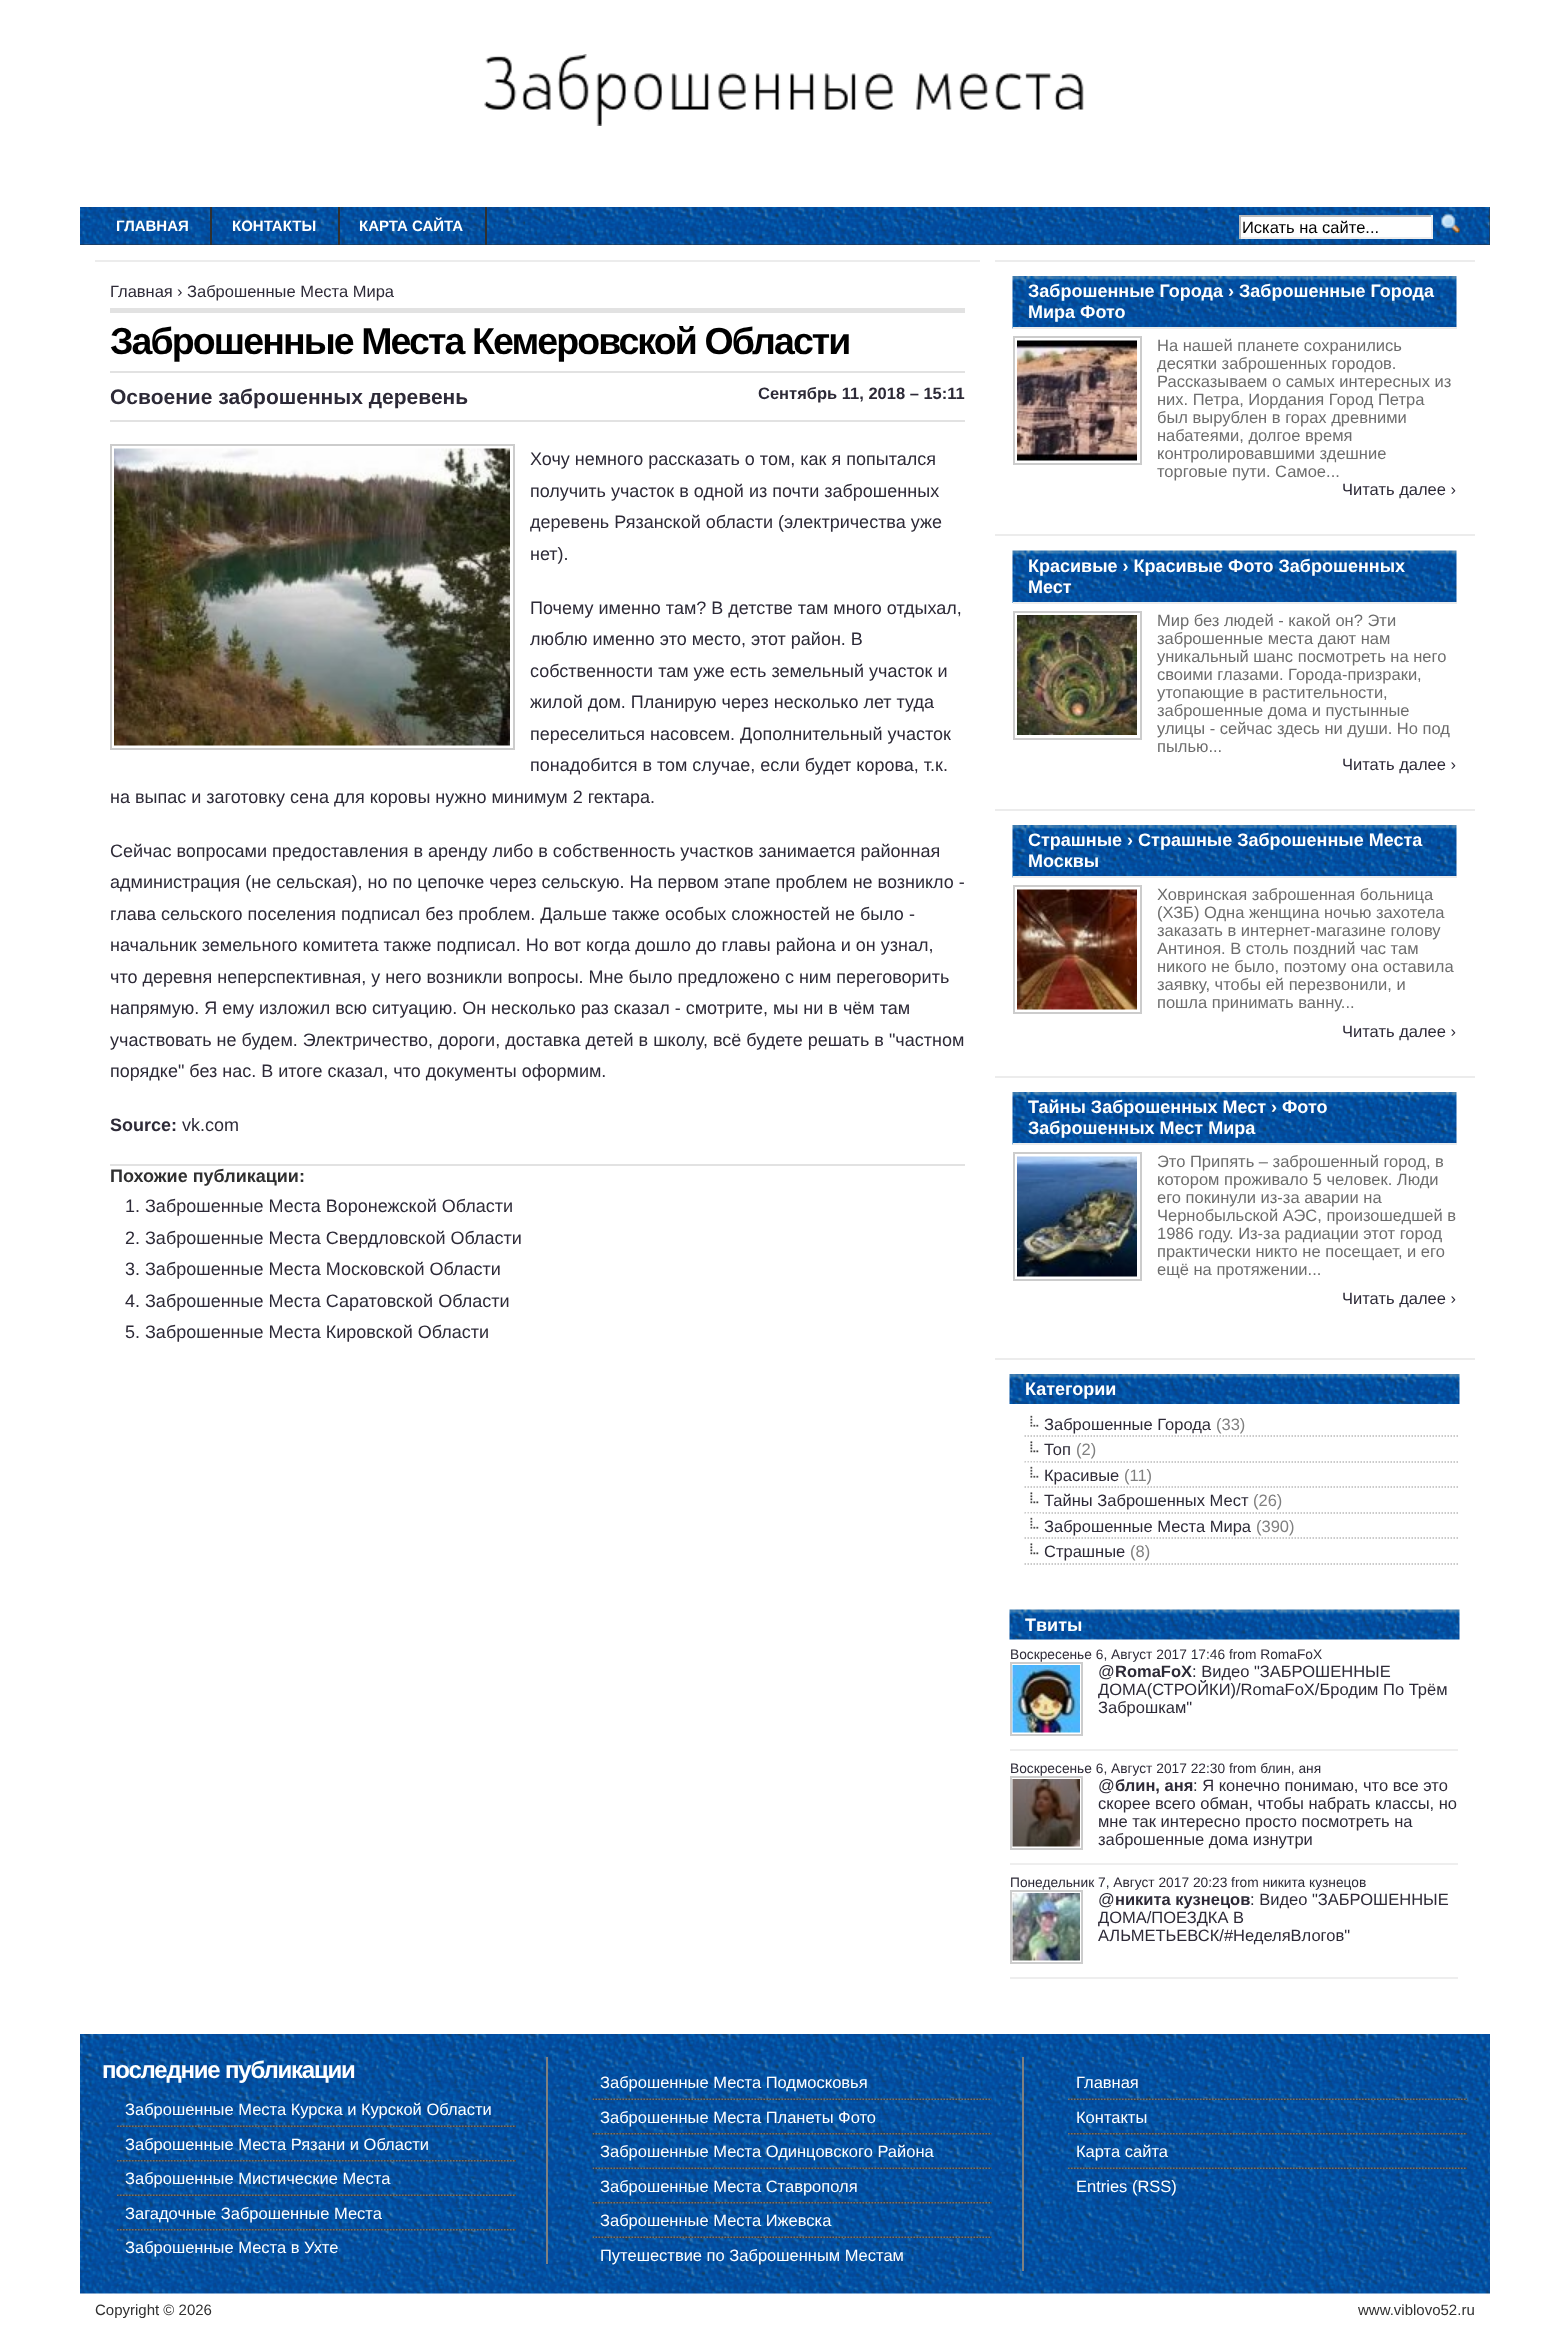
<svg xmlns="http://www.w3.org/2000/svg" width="1568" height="2340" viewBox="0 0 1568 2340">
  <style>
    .t1 { font: bold 15px Liberation Sans; fill: #fff; }
    .t2 { font: 16.5px Liberation Sans; fill: #000; }
    .t3 { font: 16.5px Liberation Sans; fill: #2d2a37; }
    .t4 { font: bold 37.5px Liberation Sans; letter-spacing: -1.9px; fill: #000; }
    .t5 { font: bold 21px Liberation Sans; fill: #2d2a37; }
    .t6 { font: bold 16.5px Liberation Sans; fill: #2d2a37; }
    .t7 { font: 18px Liberation Sans; fill: #2d2a37; }
    .t8 { font: bold 18px Liberation Sans; fill: #2d2a37; }
    .t9 { font: bold 18px Liberation Sans; fill: #303030; }
    .t10 { font: bold 18px Liberation Sans; fill: #fff; }
    .t11 { font: 16.5px Liberation Sans; fill: #6d6d6d; }
    .t12 { font: 16.5px Liberation Sans; fill: #808080; }
    .t13 { font: 13.75px Liberation Sans; fill: #2d2a37; }
    .t14 { font: bold 24px Liberation Sans; letter-spacing: -1.2px; fill: #fff; }
    .t15 { font: 16.5px Liberation Sans; fill: #fff; }
    .t16 { font: 15px Liberation Sans; fill: #303030; }
  </style>
  <rect width="100%" height="100%" fill="#fff"/>
  <image x="484" y="54" width="600" height="72" href="images/1.png"/>
  <rect x="80" y="207" width="1410" height="38" fill="#333"/>
  <image x="80" y="207" width="1410" height="38" href="images/2.png"/>
  <rect x="210" y="207" width="2" height="38" fill="#303030"/>
  <text x="116" y="231" class="t1">ГЛАВНАЯ</text>
  <rect x="338" y="207" width="2" height="38" fill="#303030"/>
  <text x="232" y="231" class="t1">КОНТАКТЫ</text>
  <rect x="485" y="207" width="2" height="38" fill="#303030"/>
  <text x="359" y="231" class="t1">КАРТА САЙТА</text>
  <rect x="1241" y="217" width="190" height="20" fill="#fff"/>
  <rect x="1239" y="215" width="194" height="2" fill="#bbb"/>
  <rect x="1431" y="215" width="2" height="24" fill="#eee"/>
  <rect x="1239" y="237" width="194" height="2" fill="#eee"/>
  <rect x="1239" y="215" width="2" height="24" fill="#bbb"/>
  <text x="1242" y="233" class="t2">Искать на сайте...</text>
  <image x="1441" y="214" width="19" height="19" href="images/3.png"/>
  <rect x="95" y="260" width="885" height="2" fill="#ececec"/>
  <text x="110" y="297" class="t3">Главная</text>
  <text x="177" y="297" class="t3">›</text>
  <text x="187" y="297" class="t3">Заброшенные Места Мира</text>
  <rect x="110" y="308" width="855" height="5" fill="#e2e2e2"/>
  <rect x="110" y="371" width="855" height="2" fill="#e2e2e2"/>
  <text x="110" y="354" class="t4">Заброшенные Места Кемеровской Области</text>
  <rect x="110" y="420" width="855" height="2" fill="#e2e2e2"/>
  <text x="110" y="404" class="t5">Освоение заброшенных деревень</text>
  <text x="758" y="399" class="t6">Сентябрь 11, 2018 – 15:11</text>
  <rect x="110" y="1164" width="855" height="2" fill="#e2e2e2"/>
  <rect x="111" y="445" width="403" height="304" fill="none" stroke="#ccc" stroke-width="2"/>
  <image x="114" y="448" width="396" height="298" href="images/4.png"/>
  <text x="530" y="465" class="t7">Хочу немного рассказать о том, как я попытался</text>
  <text x="530" y="497" class="t7">получить участок в одной из почти заброшенных</text>
  <text x="530" y="528" class="t7">деревень Рязанской области (электричества уже</text>
  <text x="530" y="560" class="t7">нет).</text>
  <text x="530" y="614" class="t7">Почему именно там? В детстве там много отдыхал,</text>
  <text x="530" y="645" class="t7">люблю именно это место, этот район. В</text>
  <text x="530" y="677" class="t7">собственности там уже есть земельный участок и</text>
  <text x="530" y="708" class="t7">жилой дом. Планирую через несколько лет туда</text>
  <text x="530" y="740" class="t7">переселиться насовсем. Дополнительный участок</text>
  <text x="530" y="771" class="t7">понадобится в том случае, если будет корова, т.к.</text>
  <text x="110" y="803" class="t7">на выпас и заготовку сена для коровы нужно минимум 2 гектара.</text>
  <text x="110" y="857" class="t7">Сейчас вопросами предоставления в аренду либо в собственность участков занимается районная</text>
  <text x="110" y="888" class="t7">администрация (не сельская), но по цепочке через сельскую. На первом этапе проблем не возникло -</text>
  <text x="110" y="920" class="t7">глава сельского поселения подписал без проблем. Дальше также особых сложностей не было -</text>
  <text x="110" y="951" class="t7">начальник земельного комитета также подписал. Но вот когда дошло до главы района и он узнал,</text>
  <text x="110" y="983" class="t7">что деревня неперспективная, у него возникли вопросы. Мне было предложено с ним переговорить</text>
  <text x="110" y="1014" class="t7">напрямую. Я ему изложил всю ситуацию. Он несколько раз сказал - смотрите, мы ни в чём там</text>
  <text x="110" y="1046" class="t7">участвовать не будем. Электричество, дороги, доставка детей в школу, всё будете решать в "частном</text>
  <text x="110" y="1077" class="t7">порядке" без нас. В итоге сказал, что документы оформим.</text>
  <text x="110" y="1131" class="t8">Source:</text>
  <text x="182" y="1131" class="t7">vk.com</text>
  <text x="110" y="1182" class="t9">Похожие публикации:</text>
  <text x="125" y="1212" class="t7">1.</text>
  <text x="145" y="1212" class="t7">Заброшенные Места Воронежской Области</text>
  <text x="125" y="1244" class="t7">2.</text>
  <text x="145" y="1244" class="t7">Заброшенные Места Свердловской Области</text>
  <text x="125" y="1275" class="t7">3.</text>
  <text x="145" y="1275" class="t7">Заброшенные Места Московской Области</text>
  <text x="125" y="1307" class="t7">4.</text>
  <text x="145" y="1307" class="t7">Заброшенные Места Саратовской Области</text>
  <text x="125" y="1338" class="t7">5.</text>
  <text x="145" y="1338" class="t7">Заброшенные Места Кировской Области</text>
  <rect x="995" y="260" width="480" height="2" fill="#ececec"/>
  <image x="1012" y="276" width="445" height="53" href="images/5.png"/>
  <rect x="1013" y="327" width="444" height="2" fill="#ececec"/>
  <text x="1028" y="297" class="t10">Заброшенные Города › Заброшенные Города</text>
  <text x="1028" y="318" class="t10">Мира Фото</text>
  <rect x="1014" y="337" width="127" height="127" fill="none" stroke="#ccc" stroke-width="2"/>
  <image x="1017" y="340" width="120" height="121" href="images/6.png"/>
  <text x="1157" y="351" class="t11">На нашей планете сохранились</text>
  <text x="1157" y="369" class="t11">десятки заброшенных городов.</text>
  <text x="1157" y="387" class="t11">Рассказываем о самых интересных из</text>
  <text x="1157" y="405" class="t11">них. Петра, Иордания Город Петра</text>
  <text x="1157" y="423" class="t11">был вырублен в горах древними</text>
  <text x="1157" y="441" class="t11">набатеями, долгое время</text>
  <text x="1157" y="459" class="t11">контролировавшими здешние</text>
  <text x="1157" y="477" class="t11">торговые пути. Самое...</text>
  <text x="1342" y="495" class="t3">Читать далее ›</text>
  <rect x="995" y="534" width="480" height="2" fill="#ececec"/>
  <image x="1012" y="550" width="445" height="53" href="images/7.png"/>
  <rect x="1013" y="602" width="444" height="2" fill="#ececec"/>
  <text x="1028" y="572" class="t10">Красивые › Красивые Фото Заброшенных</text>
  <text x="1028" y="593" class="t10">Мест</text>
  <rect x="1014" y="612" width="127" height="127" fill="none" stroke="#ccc" stroke-width="2"/>
  <image x="1017" y="615" width="120" height="120" href="images/8.png"/>
  <text x="1157" y="626" class="t11">Мир без людей - какой он? Эти</text>
  <text x="1157" y="644" class="t11">заброшенные места дают нам</text>
  <text x="1157" y="662" class="t11">уникальный шанс посмотреть на него</text>
  <text x="1157" y="680" class="t11">своими глазами. Города-призраки,</text>
  <text x="1157" y="698" class="t11">утопающие в растительности,</text>
  <text x="1157" y="716" class="t11">заброшенные дома и пустынные</text>
  <text x="1157" y="734" class="t11">улицы - сейчас здесь ни души. Но под</text>
  <text x="1157" y="752" class="t11">пылью...</text>
  <text x="1342" y="770" class="t3">Читать далее ›</text>
  <rect x="995" y="809" width="480" height="2" fill="#ececec"/>
  <image x="1012" y="825" width="445" height="53" href="images/5.png"/>
  <rect x="1013" y="876" width="444" height="2" fill="#ececec"/>
  <text x="1028" y="846" class="t10">Страшные › Страшные Заброшенные Места</text>
  <text x="1028" y="867" class="t10">Москвы</text>
  <rect x="1014" y="886" width="127" height="127" fill="none" stroke="#ccc" stroke-width="2"/>
  <image x="1017" y="889" width="120" height="121" href="images/9.png"/>
  <text x="1157" y="900" class="t11">Ховринская заброшенная больница</text>
  <text x="1157" y="918" class="t11">(ХЗБ) Одна женщина ночью захотела</text>
  <text x="1157" y="936" class="t11">заказать в интернет-магазине голову</text>
  <text x="1157" y="954" class="t11">Антиноя. В столь поздний час там</text>
  <text x="1157" y="972" class="t11">никого не было, поэтому она оставила</text>
  <text x="1157" y="990" class="t11">заявку, чтобы ей перезвонили, и</text>
  <text x="1157" y="1008" class="t11">пошла принимать ванну...</text>
  <text x="1342" y="1037" class="t3">Читать далее ›</text>
  <rect x="995" y="1076" width="480" height="2" fill="#ececec"/>
  <image x="1012" y="1092" width="445" height="53" href="images/5.png"/>
  <rect x="1013" y="1143" width="444" height="2" fill="#ececec"/>
  <text x="1028" y="1113" class="t10">Тайны Заброшенных Мест › Фото</text>
  <text x="1028" y="1134" class="t10">Заброшенных Мест Мира</text>
  <rect x="1014" y="1153" width="127" height="127" fill="none" stroke="#ccc" stroke-width="2"/>
  <image x="1017" y="1156" width="120" height="121" href="images/10.png"/>
  <text x="1157" y="1167" class="t11">Это Припять – заброшенный город, в</text>
  <text x="1157" y="1185" class="t11">котором проживало 5 человек. Люди</text>
  <text x="1157" y="1203" class="t11">его покинули из-за аварии на</text>
  <text x="1157" y="1221" class="t11">Чернобыльской АЭС, произошедшей в</text>
  <text x="1157" y="1239" class="t11">1986 году. Из-за радиации этот город</text>
  <text x="1157" y="1257" class="t11">практически никто не посещает, и его</text>
  <text x="1157" y="1275" class="t11">ещё на протяжении...</text>
  <text x="1342" y="1304" class="t3">Читать далее ›</text>
  <rect x="995" y="1358" width="480" height="2" fill="#ececec"/>
  <image x="1009" y="1374" width="451" height="30" href="images/11.png"/>
  <text x="1025" y="1395" class="t10">Категории</text>
  <image x="1030" y="1415" width="9" height="12" href="images/12.png"/>
  <path d="M1024.5 1436H1459.5" fill="none" stroke="#bbb" stroke-width="1.5" stroke-dasharray="1.5 1.5"/>
  <text x="1044" y="1430" class="t3">Заброшенные Города</text>
  <text x="1216" y="1430" class="t12">(33)</text>
  <image x="1030" y="1441" width="9" height="12" href="images/13.png"/>
  <path d="M1024.5 1462H1459.5" fill="none" stroke="#bbb" stroke-width="1.5" stroke-dasharray="1.5 1.5"/>
  <text x="1044" y="1455" class="t3">Топ</text>
  <text x="1076" y="1455" class="t12">(2)</text>
  <image x="1024" y="1462" width="19" height="16" href="images/14.png"/>
  <path d="M1024.5 1487H1459.5" fill="none" stroke="#bbb" stroke-width="1.5" stroke-dasharray="1.5 1.5"/>
  <text x="1044" y="1481" class="t3">Красивые</text>
  <text x="1124" y="1481" class="t12">(11)</text>
  <image x="1030" y="1492" width="9" height="12" href="images/13.png"/>
  <path d="M1024.5 1513H1459.5" fill="none" stroke="#bbb" stroke-width="1.5" stroke-dasharray="1.5 1.5"/>
  <text x="1044" y="1506" class="t3">Тайны Заброшенных Мест</text>
  <text x="1253" y="1506" class="t12">(26)</text>
  <image x="1024" y="1513" width="19" height="16" href="images/14.png"/>
  <path d="M1024.5 1538H1459.5" fill="none" stroke="#bbb" stroke-width="1.5" stroke-dasharray="1.5 1.5"/>
  <text x="1044" y="1532" class="t3">Заброшенные Места Мира</text>
  <text x="1256" y="1532" class="t12">(390)</text>
  <image x="1030" y="1543" width="9" height="12" href="images/13.png"/>
  <path d="M1024.5 1564H1459.5" fill="none" stroke="#bbb" stroke-width="1.5" stroke-dasharray="1.5 1.5"/>
  <text x="1044" y="1557" class="t3">Страшные</text>
  <text x="1130" y="1557" class="t12">(8)</text>
  <image x="1009" y="1609" width="451" height="31" href="images/15.png"/>
  <text x="1025" y="1631" class="t10">Tвиты</text>
  <rect x="1010" y="1749" width="448" height="2" fill="#eee"/>
  <text x="1010" y="1659" class="t13">Воскресенье 6, Август 2017 17:46 from RomaFoX</text>
  <rect x="1011" y="1663" width="71" height="72" fill="none" stroke="#ccc" stroke-width="2"/>
  <image x="1012" y="1665" width="68" height="68" href="images/16.png"/>
  <text x="1098" y="1677" class="t3">@</text>
  <text x="1115" y="1677" class="t6">RomaFoX</text>
  <text x="1192" y="1677" class="t3">: Видео "ЗАБРОШЕННЫЕ</text>
  <text x="1098" y="1695" class="t3">ДОМА(СТРОЙКИ)/RomaFoX/Бродим По Трём</text>
  <text x="1098" y="1713" class="t3">Заброшкам"</text>
  <rect x="1010" y="1863" width="448" height="2" fill="#eee"/>
  <text x="1010" y="1773" class="t13">Воскресенье 6, Август 2017 22:30 from блин, аня</text>
  <rect x="1011" y="1777" width="71" height="72" fill="none" stroke="#ccc" stroke-width="2"/>
  <image x="1012" y="1779" width="68" height="68" href="images/17.png"/>
  <text x="1098" y="1791" class="t3">@</text>
  <text x="1115" y="1791" class="t6">блин, аня</text>
  <text x="1193" y="1791" class="t3">: Я конечно понимаю, что все это</text>
  <text x="1098" y="1809" class="t3">скорее всего обман, чтобы набрать классы, но</text>
  <text x="1098" y="1827" class="t3">мне так интересно просто посмотреть на</text>
  <text x="1098" y="1845" class="t3">заброшенные дома изнутри</text>
  <rect x="1010" y="1977" width="448" height="2" fill="#eee"/>
  <text x="1010" y="1887" class="t13">Понедельник 7, Август 2017 20:23 from никита кузнецов</text>
  <rect x="1011" y="1891" width="71" height="72" fill="none" stroke="#ccc" stroke-width="2"/>
  <image x="1012" y="1893" width="68" height="68" href="images/18.png"/>
  <text x="1098" y="1905" class="t3">@</text>
  <text x="1115" y="1905" class="t6">никита кузнецов</text>
  <text x="1250" y="1905" class="t3">: Видео "ЗАБРОШЕННЫЕ</text>
  <text x="1098" y="1923" class="t3">ДОМА/ПОЕЗДКА В</text>
  <text x="1098" y="1941" class="t3">АЛЬМЕТЬЕВСК/#НеделяВлогов"</text>
  <image x="80" y="2034" width="1410" height="260" href="images/19.png"/>
  <rect x="546" y="2057" width="2" height="207" fill="#808080"/>
  <text x="102" y="2078" class="t14">последние публикации</text>
  <text x="125" y="2115" class="t15">Заброшенные Места Курска и Курской Области</text>
  <image x="117" y="2125" width="399" height="2" href="images/20.png"/>
  <text x="125" y="2150" class="t15">Заброшенные Места Рязани и Области</text>
  <image x="117" y="2160" width="399" height="2" href="images/21.png"/>
  <text x="125" y="2184" class="t15">Заброшенные Мистические Места</text>
  <image x="117" y="2194" width="399" height="2" href="images/22.png"/>
  <text x="125" y="2219" class="t15">Загадочные Заброшенные Места</text>
  <image x="117" y="2229" width="399" height="2" href="images/23.png"/>
  <text x="125" y="2253" class="t15">Заброшенные Места в Ухте</text>
  <rect x="1022" y="2057" width="2" height="214" fill="#808080"/>
  <text x="600" y="2088" class="t15">Заброшенные Места Подмосковья</text>
  <image x="592" y="2098" width="400" height="2" href="images/24.png"/>
  <text x="600" y="2123" class="t15">Заброшенные Места Планеты Фото</text>
  <image x="592" y="2133" width="400" height="2" href="images/25.png"/>
  <text x="600" y="2157" class="t15">Заброшенные Места Одинцовского Района</text>
  <image x="592" y="2167" width="400" height="2" href="images/26.png"/>
  <text x="600" y="2192" class="t15">Заброшенные Места Ставрополя</text>
  <image x="592" y="2202" width="400" height="2" href="images/27.png"/>
  <text x="600" y="2226" class="t15">Заброшенные Места Ижевска</text>
  <image x="592" y="2236" width="400" height="2" href="images/28.png"/>
  <text x="600" y="2261" class="t15">Путешествие по Заброшенным Местам</text>
  <text x="1076" y="2088" class="t15">Главная</text>
  <image x="1068" y="2098" width="399" height="2" href="images/29.png"/>
  <text x="1076" y="2123" class="t15">Контакты</text>
  <image x="1068" y="2133" width="399" height="2" href="images/30.png"/>
  <text x="1076" y="2157" class="t15">Карта сайта</text>
  <image x="1068" y="2167" width="399" height="2" href="images/31.png"/>
  <text x="1076" y="2192" class="t15">Entries (RSS)</text>
  <text x="95" y="2315" class="t16">Copyright © 2026</text>
  <text x="1358" y="2315" class="t16">www.viblovo52.ru</text>
</svg>
